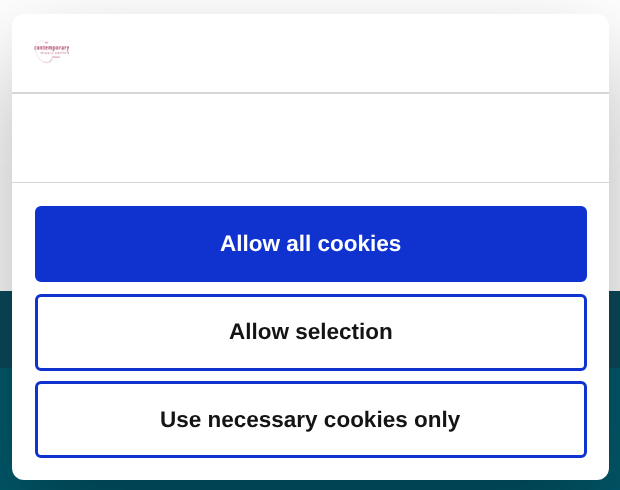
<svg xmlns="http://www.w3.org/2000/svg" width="620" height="490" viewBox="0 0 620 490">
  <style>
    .t1 { font: bold 22.5px Liberation Sans; fill: #fff; }
    .t2 { font: bold 22.5px Liberation Sans; fill: #141414; }
  </style>
  <rect width="100%" height="100%" fill="#fff"/>
  <image x="12" y="24" width="1" height="2" href="images/1.png"/>
  <rect x="0" y="291" width="620" height="77" fill="#0b4a5b"/>
  <rect x="0" y="368" width="620" height="122" fill="#005a6d"/>
  <rect x="12" y="62" width="597" height="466" rx="12" fill="#0000004d" filter="blur(51px)"/>
  <rect x="12" y="14" width="597" height="466" rx="12" fill="#fff"/>
  <rect x="12" y="92" width="597" height="2" fill="#d6d6d6"/>
  <image x="34" y="40" width="35" height="24" href="images/2.png"/>
  <rect x="12" y="182" width="597" height="1" fill="#d6d6d6"/>
  <rect x="36.5" y="207.5" width="549" height="73" rx="4.5" fill="#1032cf" stroke="#1032cf" stroke-width="3"/>
  <text x="220" y="251" class="t1">Allow all cookies</text>
  <rect x="36.5" y="295.5" width="549" height="74" rx="4.5" fill="none" stroke="#1032cf" stroke-width="3"/>
  <text x="229" y="339" class="t2">Allow selection</text>
  <rect x="36.5" y="382.5" width="549" height="74" rx="4.5" fill="none" stroke="#1032cf" stroke-width="3"/>
  <text x="160" y="427" class="t2">Use necessary cookies only</text>
</svg>
